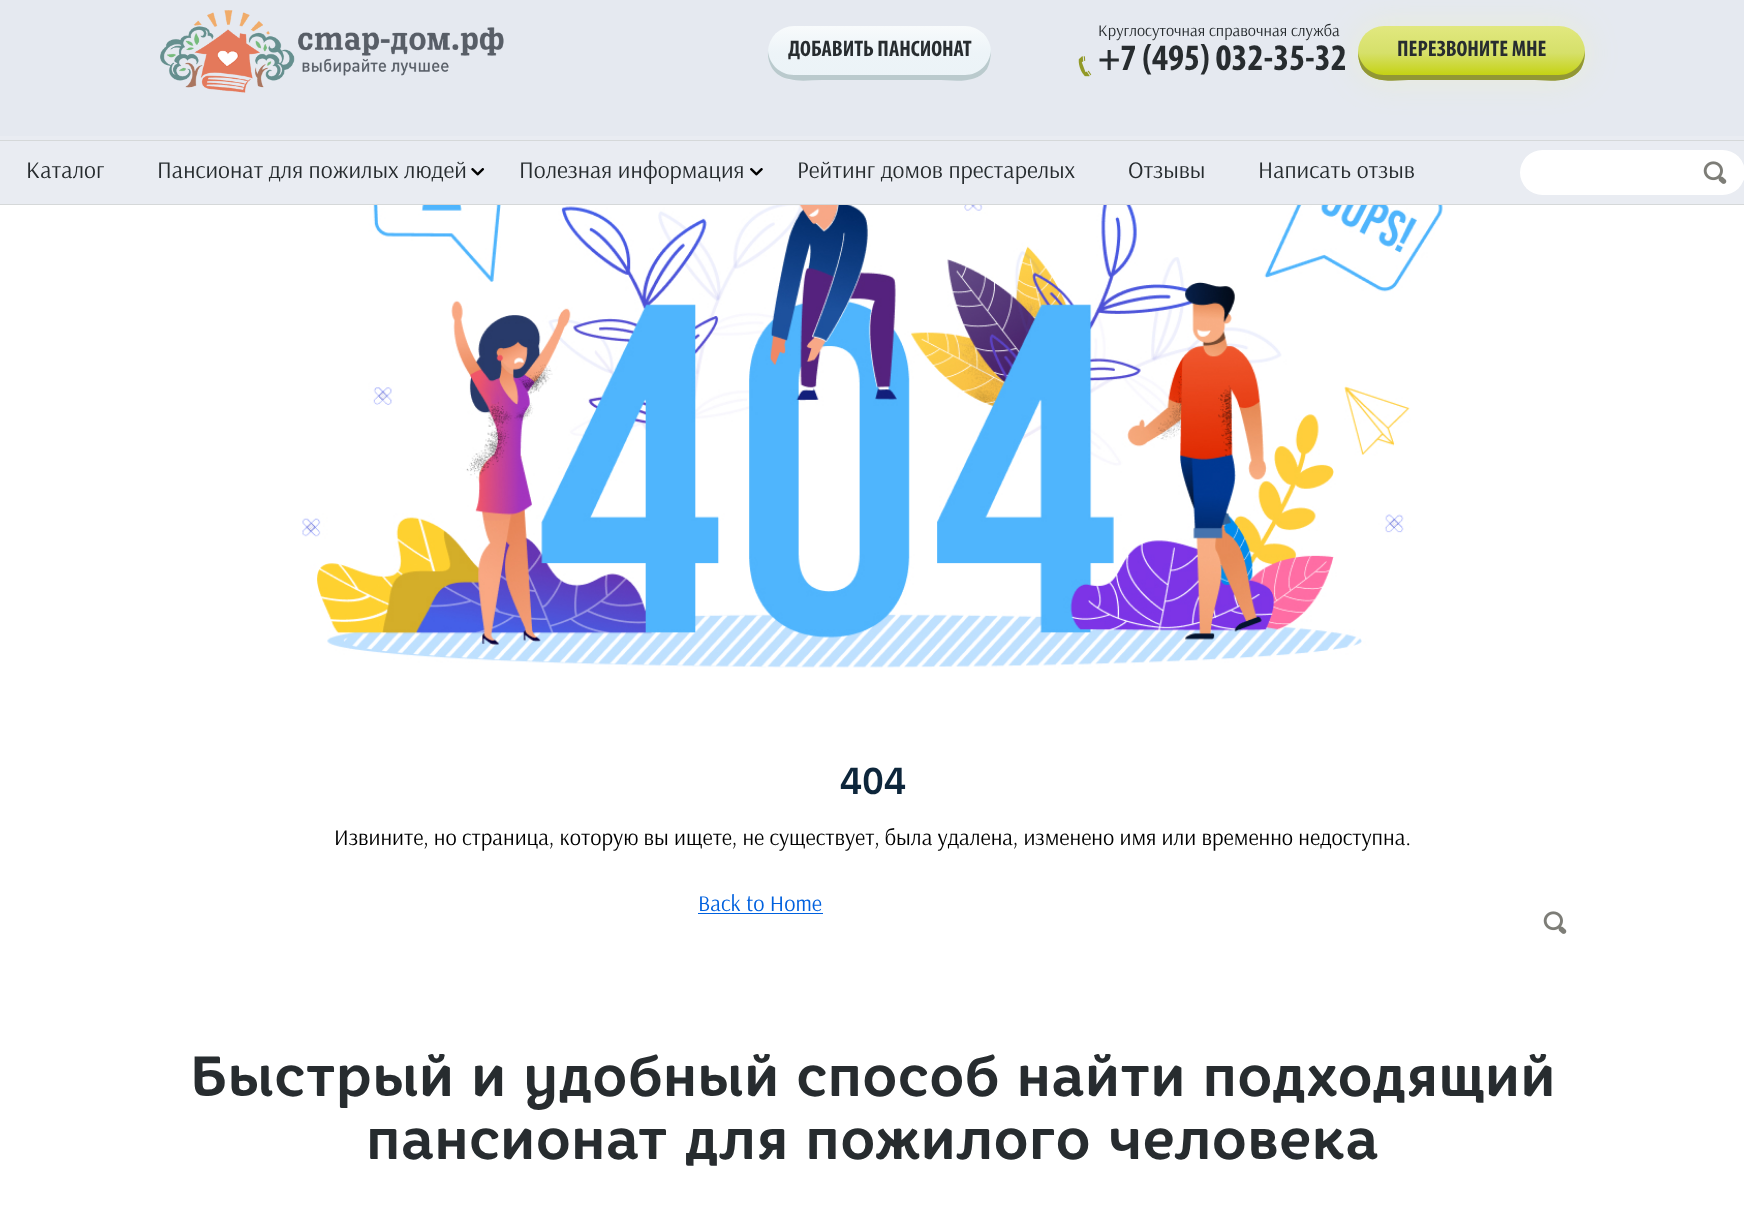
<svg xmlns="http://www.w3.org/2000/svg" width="1744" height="1217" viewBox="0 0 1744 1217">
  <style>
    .t1 { font: bold 22.5px Myriad; fill: #272c2f; }
    .t2 { font: 16.25px Arsenal; fill: #272c2f; }
    .t3 { font: bold 37.5px Myriad; fill: #272c2f; }
    .t4 { font: 23.75px Arsenal; fill: #272c2f; }
    .t5 { font: 600 37.5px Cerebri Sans; fill: #0d263b; }
    .t6 { font: 22.5px Arsenal; fill: #000; }
    .t7 { font: 22.5px Arsenal; fill: #0061df; }
    .t8 { font: bold 56.25px 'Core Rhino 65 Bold'; fill: #272c2f; }
  </style>
  <defs>
    <linearGradient id="g1" gradientUnits="userSpaceOnUse" x1="879" y1="26" x2="879" y2="80"><stop offset="0" stop-color="#f8fbfc"/><stop offset="0.5" stop-color="#edf4f8"/><stop offset="1" stop-color="#ebf3f7"/></linearGradient>
    <linearGradient id="g2" gradientUnits="userSpaceOnUse" x1="1471" y1="26" x2="1471" y2="80"><stop offset="0" stop-color="#e1e87f"/><stop offset="0.5" stop-color="#d6e06a"/><stop offset="1" stop-color="#c1cf00"/></linearGradient>
  </defs>
  <rect width="100%" height="100%" fill="#fff"/>
  <rect x="0" y="0" width="1744" height="136" fill="#e5e9f0"/>
  <image x="160" y="10" width="344" height="83" href="images/1.png"/>
  <rect x="768" y="26" width="223" height="54" rx="26" fill="url(#g1)"/>
  <path d="M768 51C767 64 775 77 789 79C800 82 811 80 822 80H936C953 80 976 85 987 69C990 63 991 57 991 50C990 64 979 75 965 75H794C780 75 769 64 768 51Z" fill="#bacacd"/>
  <text x="788" y="56" class="t1">ДОБАВИТЬ ПАНСИОНАТ</text>
  <rect x="1358" y="26" width="227" height="54" rx="26" fill="#f8ff712e" filter="blur(17px)"/>
  <text x="1098" y="36" class="t2">Круглосуточная справочная служба</text>
  <image x="1078" y="56" width="14" height="21" href="images/2.png"/>
  <text x="1098" y="70" class="t3">+7 (495) 032-35-32</text>
  <rect x="1358" y="26" width="227" height="54" rx="26" fill="url(#g2)"/>
  <path d="M1358 51C1358 57 1359 63 1362 69C1373 85 1397 80 1413 80H1530C1546 80 1570 85 1581 69C1584 63 1585 57 1585 50C1584 64 1573 75 1559 75H1384C1370 75 1359 64 1358 51Z" fill="#929735"/>
  <text x="1397" y="56" class="t1">ПЕРЕЗВОНИТЕ МНЕ</text>
  <rect x="0" y="204" width="1744" height="1" fill="#d5d8d9"/>
  <rect x="0" y="136" width="1744" height="68" fill="#e9ecf2"/>
  <rect x="0" y="140" width="1744" height="1" fill="#d5d8d9"/>
  <text x="26" y="178" class="t4">Каталог</text>
  <text x="157" y="178" class="t4">Пансионат для пожилых людей</text>
  <image x="471" y="168" width="14" height="8" href="images/3.png"/>
  <text x="519" y="178" class="t4">Полезная информация</text>
  <image x="750" y="168" width="13" height="8" href="images/4.png"/>
  <text x="797" y="178" class="t4">Рейтинг домов престарелых</text>
  <text x="1128" y="178" class="t4">Отзывы</text>
  <text x="1258" y="178" class="t4">Написать отзыв</text>
  <rect x="1520" y="150" width="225" height="45" rx="22.5" fill="#fff"/>
  <image x="1703" y="161" width="24" height="23" href="images/5.png"/>
  <image x="302" y="205" width="1141" height="463" href="images/6.png"/>
  <text x="840" y="794" class="t5">404</text>
  <text x="334" y="845" class="t6">Извините, но страница, которую вы ищете, не существует, была удалена, изменено имя или временно недоступна.</text>
  <text x="698" y="911" class="t7">Back to Home</text>
  <rect x="698" y="913" width="125" height="1" fill="#0061df"/>
  <image x="1543" y="911" width="24" height="23" href="images/5.png"/>
  <text x="190" y="1096" class="t8">Быстрый и удобный способ найти подходящий</text>
  <text x="366" y="1159" class="t8">пансионат для пожилого человека</text>
</svg>
